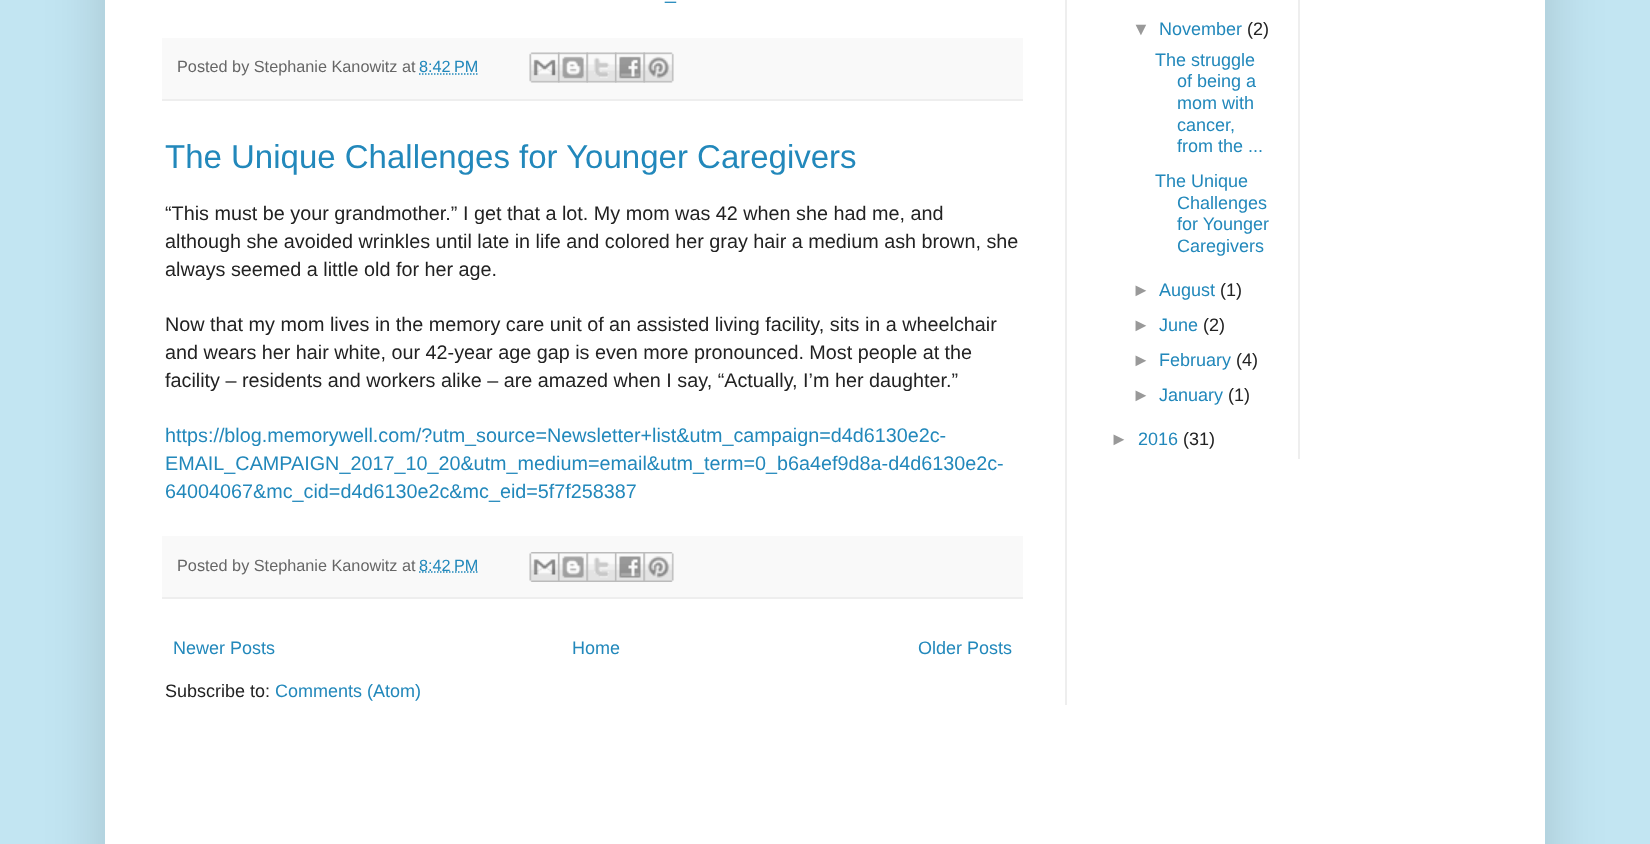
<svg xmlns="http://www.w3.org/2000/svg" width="1650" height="844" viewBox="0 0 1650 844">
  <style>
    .t1 { font: 19.8px Liberation Sans; fill: #28b; }
    .t2 { font: 16.25px Liberation Sans; fill: #666; }
    .t3 { font: 16.25px Liberation Sans; fill: #28b; }
    .t4 { font: 33px Liberation Sans; fill: #28b; }
    .t5 { font: 19.8px Liberation Sans; fill: #222; }
    .t6 { font: 18px Liberation Sans; fill: #28b; }
    .t7 { font: 18px Liberation Sans; fill: #222; }
    .t8 { font: 18px Liberation Sans; fill: #999; }
  </style>
  <rect width="100%" height="100%" fill="#c2e5f2"/>
  <rect x="105" y="-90" width="1440" height="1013" fill="#00000026" filter="blur(30px)"/>
  <rect x="105" y="0" width="1440" height="844" fill="#fff"/>
  <rect x="1065" y="0" width="2" height="705" fill="#eee"/>
  <text x="665" y="-1" class="t1">_</text>
  <rect x="162" y="38" width="861" height="61" fill="#f9f9f9"/>
  <rect x="162" y="99" width="861" height="2" fill="#eee"/>
  <text x="177" y="72" class="t2">Posted by Stephanie Kanowitz at</text>
  <text x="419" y="72" class="t3">8:42 PM</text>
  <path d="M419 74H478.5" fill="none" stroke="#28b" stroke-width="1.5" stroke-dasharray="1.5 1.5"/>
  <image x="529" y="52" width="31" height="31" href="images/1.png"/>
  <image x="558" y="52" width="30" height="31" href="images/2.png"/>
  <image x="586" y="52" width="31" height="31" href="images/3.png"/>
  <image x="615" y="52" width="30" height="31" href="images/4.png"/>
  <image x="643" y="52" width="31" height="31" href="images/5.png"/>
  <text x="165" y="168" class="t4">The Unique Challenges for Younger Caregivers</text>
  <text x="165" y="220" class="t5">“This must be your grandmother.” I get that a lot. My mom was 42 when she had me, and</text>
  <text x="165" y="248" class="t5">although she avoided wrinkles until late in life and colored her gray hair a medium ash brown, she</text>
  <text x="165" y="276" class="t5">always seemed a little old for her age.</text>
  <text x="165" y="331" class="t5">Now that my mom lives in the memory care unit of an assisted living facility, sits in a wheelchair</text>
  <text x="165" y="359" class="t5">and wears her hair white, our 42-year age gap is even more pronounced. Most people at the</text>
  <text x="165" y="387" class="t5">facility – residents and workers alike – are amazed when I say, “Actually, I’m her daughter.”</text>
  <text x="165" y="442" class="t1">https://blog.memorywell.com/?utm_source=Newsletter+list&amp;utm_campaign=d4d6130e2c-</text>
  <text x="165" y="470" class="t1">EMAIL_CAMPAIGN_2017_10_20&amp;utm_medium=email&amp;utm_term=0_b6a4ef9d8a-d4d6130e2c-</text>
  <text x="165" y="498" class="t1">64004067&amp;mc_cid=d4d6130e2c&amp;mc_eid=5f7f258387</text>
  <rect x="162" y="536" width="861" height="61" fill="#f9f9f9"/>
  <rect x="162" y="597" width="861" height="2" fill="#eee"/>
  <text x="177" y="571" class="t2">Posted by Stephanie Kanowitz at</text>
  <path d="M419 572H478.5" fill="none" stroke="#28b" stroke-width="1.5" stroke-dasharray="1.5 1.5"/>
  <text x="419" y="571" class="t3">8:42 PM</text>
  <image x="529" y="552" width="29" height="30" href="images/6.png"/>
  <image x="558" y="552" width="29" height="30" href="images/7.png"/>
  <image x="586" y="552" width="29" height="30" href="images/8.png"/>
  <image x="615" y="552" width="29" height="30" href="images/9.png"/>
  <image x="643" y="552" width="31" height="30" href="images/10.png"/>
  <text x="173" y="654" class="t6">Newer Posts</text>
  <text x="572" y="654" class="t6">Home</text>
  <text x="918" y="654" class="t6">Older Posts</text>
  <text x="165" y="697" class="t7">Subscribe to:</text>
  <text x="275" y="697" class="t6">Comments (Atom)</text>
  <text x="1132" y="35" class="t8">▼</text>
  <text x="1159" y="35" class="t6">November</text>
  <text x="1247" y="35" class="t7">(2)</text>
  <text x="1155" y="66" class="t6">The struggle</text>
  <text x="1177" y="87" class="t6">of being a</text>
  <text x="1177" y="109" class="t6">mom with</text>
  <text x="1177" y="131" class="t6">cancer,</text>
  <text x="1177" y="152" class="t6">from the ...</text>
  <text x="1155" y="187" class="t6">The Unique</text>
  <text x="1177" y="209" class="t6">Challenges</text>
  <text x="1177" y="230" class="t6">for Younger</text>
  <text x="1177" y="252" class="t6">Caregivers</text>
  <text x="1132" y="296" class="t8">►</text>
  <text x="1159" y="296" class="t6">August</text>
  <text x="1220" y="296" class="t7">(1)</text>
  <text x="1132" y="331" class="t8">►</text>
  <text x="1159" y="331" class="t6">June</text>
  <text x="1203" y="331" class="t7">(2)</text>
  <text x="1132" y="366" class="t8">►</text>
  <text x="1159" y="366" class="t6">February</text>
  <text x="1236" y="366" class="t7">(4)</text>
  <text x="1132" y="401" class="t8">►</text>
  <text x="1159" y="401" class="t6">January</text>
  <text x="1228" y="401" class="t7">(1)</text>
  <text x="1110" y="445" class="t8">►</text>
  <text x="1138" y="445" class="t6">2016</text>
  <text x="1183" y="445" class="t7">(31)</text>
  <rect x="1298" y="0" width="2" height="459" fill="#eee"/>
</svg>
